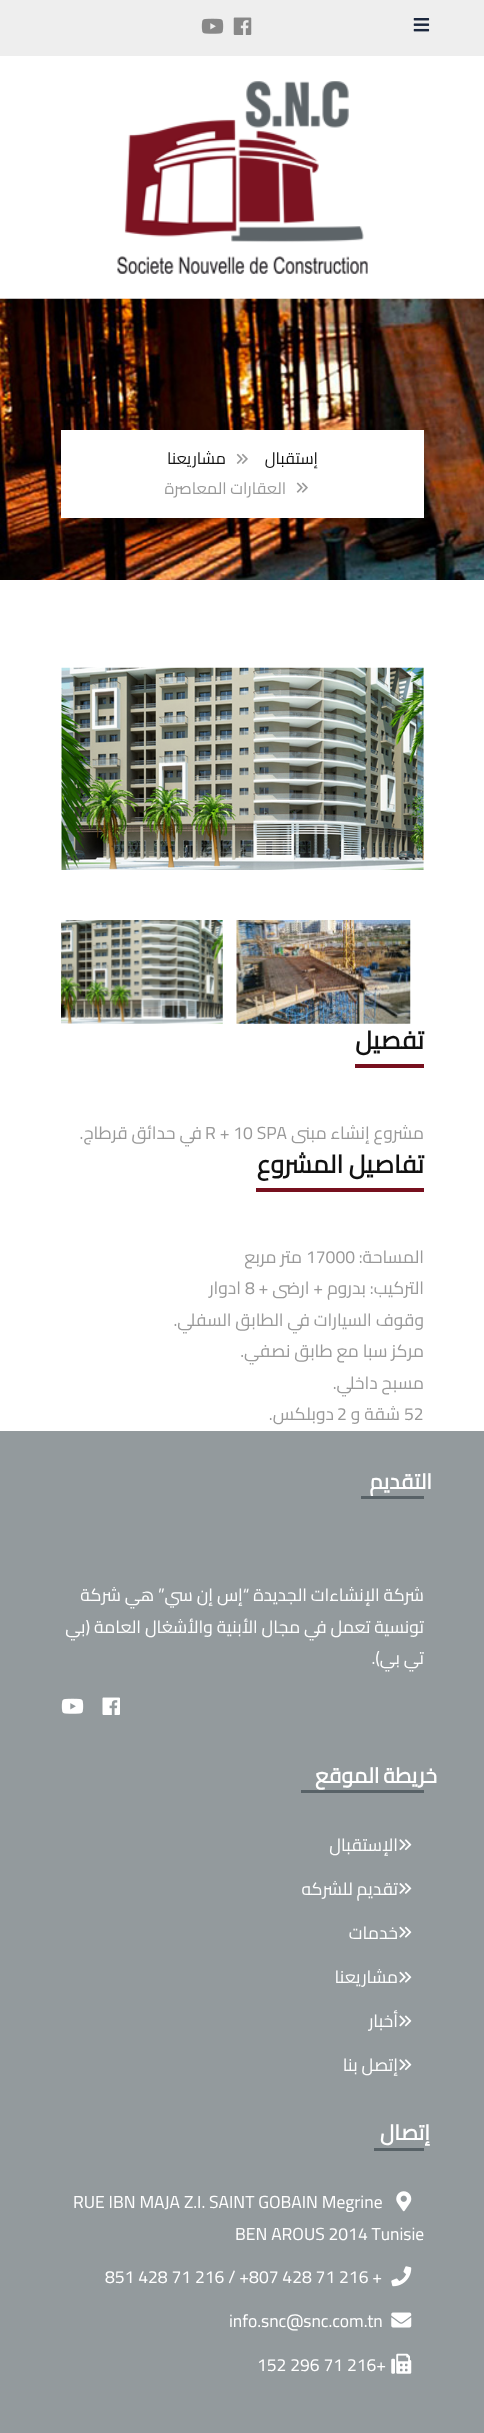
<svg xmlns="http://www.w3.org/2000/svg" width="484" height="2433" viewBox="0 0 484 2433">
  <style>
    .t1 { font: 16.25px Cairo; direction: rtl; fill: #111; }
    .t2 { font: 16.25px Cairo; direction: rtl; fill: #999; }
    .t3 { font: bold 25px Cairo; direction: rtl; fill: #111; }
    .t4 { font: 17.5px Cairo; direction: rtl; fill: #999; }
    .t5 { font: 17.5px Cairo; fill: #999; }
    .t6 { font: bold 21.25px Cairo; letter-spacing: 1.25px; direction: rtl; fill: #fff; }
    .t7 { font: 17.5px Cairo; direction: rtl; fill: #fff; }
    .t8 { font: 17.5px Cairo; fill: #fff; }
  </style>
  <rect width="100%" height="100%" fill="#fff"/>
  <rect x="0" y="0" width="484" height="56" fill="#eee"/>
  <image x="233" y="17" width="19" height="18" href="images/1.png"/>
  <image x="201" y="18" width="23" height="16" href="images/2.png"/>
  <image x="413" y="18" width="17" height="14" href="images/3.png"/>
  <image x="117" y="81" width="251" height="193" href="images/4.png"/>
  <image x="0" y="298" width="484" height="282" href="images/5.png"/>
  <rect x="61" y="430" width="363" height="88" fill="#fff"/>
  <text x="318" y="464" class="t1">إستقبال</text>
  <image x="236" y="453" width="12" height="11" href="images/6.png"/>
  <text x="226" y="464" class="t1">مشاريعنا</text>
  <image x="296" y="482" width="12" height="11" href="images/7.png"/>
  <text x="286" y="494" class="t2">العقارات المعاصرة</text>
  <image x="61" y="667" width="363" height="203" href="images/8.png"/>
  <image x="236" y="920" width="175" height="104" href="images/9.png"/>
  <image x="61" y="920" width="162" height="104" href="images/10.png"/>
  <text x="424" y="1049" class="t3">تفصيل</text>
  <rect x="355" y="1064" width="69" height="4" fill="#77101e"/>
  <text x="424" y="1139" class="t4">مشروع إنشاء مبنى</text>
  <text x="205" y="1139" class="t5">R + 10 SPA</text>
  <text x="202" y="1139" class="t4">في حدائق قرطاج.</text>
  <text x="424" y="1173" class="t3">تفاصيل المشروع</text>
  <rect x="256" y="1188" width="168" height="4" fill="#77101e"/>
  <text x="424" y="1263" class="t4">المساحة:</text>
  <text x="306" y="1263" class="t5">17000</text>
  <text x="302" y="1263" class="t4">متر مربع</text>
  <text x="424" y="1294" class="t4">التركيب: بدروم + ارضى +</text>
  <text x="245" y="1294" class="t5">8</text>
  <text x="241" y="1294" class="t4">ادوار</text>
  <text x="424" y="1326" class="t4">وقوف السيارات في الطابق السفلي.</text>
  <text x="424" y="1357" class="t4">مركز سبا مع طابق نصفي.</text>
  <text x="424" y="1389" class="t4">مسبح داخلي.</text>
  <text x="404" y="1420" class="t5">52</text>
  <text x="400" y="1420" class="t4">شقة و</text>
  <text x="337" y="1420" class="t5">2</text>
  <text x="334" y="1420" class="t4">دوبلكس.</text>
  <rect x="0" y="1431" width="484" height="1002" fill="#939a9d"/>
  <text x="432" y="1489" class="t6">التقديم</text>
  <rect x="361" y="1496" width="63" height="3" fill="#586267"/>
  <text x="424" y="1601" class="t7">شركة الإنشاءات الجديدة “إس إن سي” هي شركة</text>
  <text x="424" y="1633" class="t7">تونسية تعمل في مجال الأبنية والأشغال العامة (بي</text>
  <text x="424" y="1664" class="t7">تي بي).</text>
  <image x="102" y="1697" width="18" height="18" href="images/11.png"/>
  <image x="61" y="1698" width="23" height="16" href="images/12.png"/>
  <text x="437" y="1783" word-spacing="-1" class="t6">خريطة الموقع</text>
  <rect x="301" y="1790" width="123" height="3" fill="#586267"/>
  <image x="399" y="1839" width="13" height="12" href="images/13.png"/>
  <text x="398" y="1851" class="t7">الإستقبال</text>
  <image x="399" y="1883" width="13" height="11" href="images/14.png"/>
  <text x="398" y="1895" class="t7">تقديم للشركه</text>
  <image x="399" y="1926" width="13" height="12" href="images/15.png"/>
  <text x="398" y="1939" class="t7">خدمات</text>
  <image x="399" y="1971" width="13" height="12" href="images/15.png"/>
  <text x="398" y="1983" class="t7">مشاريعنا</text>
  <image x="399" y="2015" width="13" height="12" href="images/16.png"/>
  <text x="398" y="2027" class="t7">أخبار</text>
  <image x="399" y="2059" width="13" height="12" href="images/13.png"/>
  <text x="398" y="2071" class="t7">إتصل بنا</text>
  <text x="430" y="2140" class="t6">إتصال</text>
  <rect x="374" y="2148" width="50" height="3" fill="#586267"/>
  <image x="396" y="2191" width="16" height="21" href="images/17.png"/>
  <text x="73" y="2208" class="t8">RUE IBN MAJA Z.I. SAINT GOBAIN Megrine</text>
  <text x="235" y="2240" class="t8">BEN AROUS 2014 Tunisie</text>
  <image x="391" y="2266" width="21" height="21" href="images/18.png"/>
  <text x="105" y="2283" class="t8">851 428 71 216 / +807 428 71 216 +</text>
  <image x="391" y="2312" width="21" height="16" href="images/19.png"/>
  <text x="229" y="2327" class="t8">info.snc@snc.com.tn</text>
  <image x="391" y="2353" width="21" height="21" href="images/20.png"/>
  <text x="257" y="2371" class="t8">152 296 71 216+</text>
</svg>
